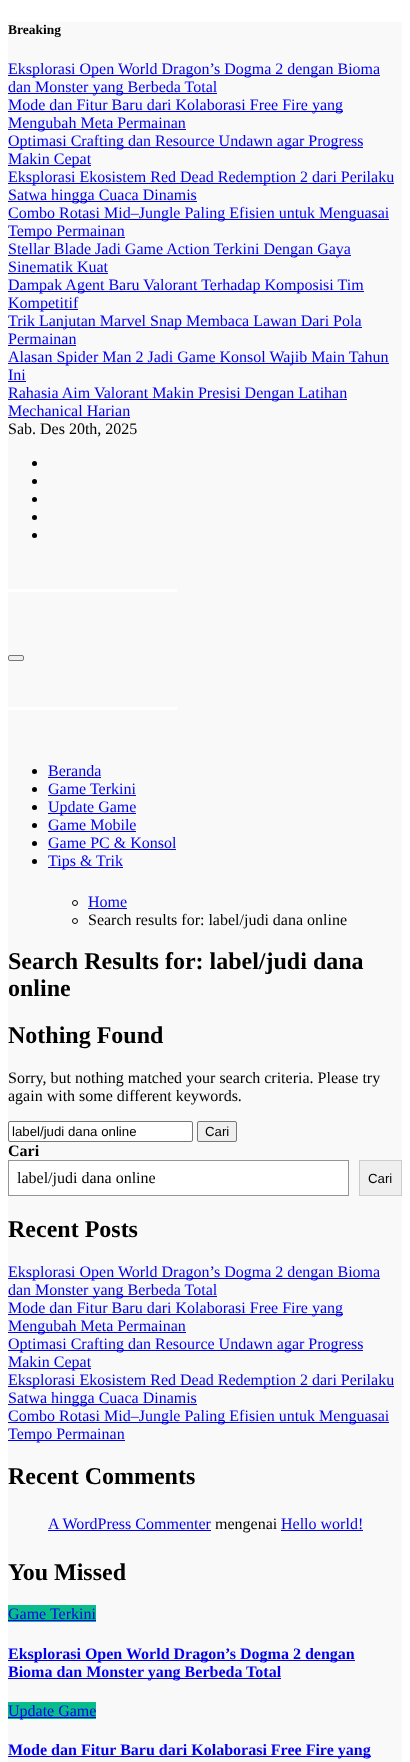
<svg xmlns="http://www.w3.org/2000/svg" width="410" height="1762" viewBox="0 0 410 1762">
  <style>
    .t1 { font: bold 13.5px Liberation Serif; fill: #000; }
    .t2 { font: 16px Liberation Serif; fill: #00e; }
    .t3 { font: 16px Liberation Serif; fill: #000; }
    .t4 { font: bold 24px Liberation Serif; fill: #000; }
    .t5 { font: 13.25px Liberation Sans; fill: #000; }
    .t6 { font: bold 16px Liberation Serif; fill: #000; }
    .t7 { font: bold 16px Liberation Serif; fill: #00e; }
  </style>
  <rect width="100%" height="100%" fill="#fff"/>
  <rect x="8" y="22" width="394" height="1740" fill="#f9f9f9"/>
  <text x="8" y="34" class="t1">Breaking</text>
  <rect x="8" y="75" width="372" height="1" fill="#00e"/>
  <text x="8" y="74" class="t2">Eksplorasi Open World Dragon’s Dogma 2 dengan Bioma</text>
  <rect x="8" y="93" width="209" height="1" fill="#00e"/>
  <text x="8" y="92" class="t2">dan Monster yang Berbeda Total</text>
  <rect x="8" y="111" width="335" height="1" fill="#00e"/>
  <text x="8" y="110" class="t2">Mode dan Fitur Baru dari Kolaborasi Free Fire yang</text>
  <rect x="8" y="129" width="178" height="1" fill="#00e"/>
  <text x="8" y="128" class="t2">Mengubah Meta Permainan</text>
  <rect x="8" y="147" width="355" height="1" fill="#00e"/>
  <text x="8" y="146" class="t2">Optimasi Crafting dan Resource Undawn agar Progress</text>
  <rect x="8" y="165" width="83" height="1" fill="#00e"/>
  <text x="8" y="164" class="t2">Makin Cepat</text>
  <rect x="8" y="183" width="386" height="1" fill="#00e"/>
  <text x="8" y="182" class="t2">Eksplorasi Ekosistem Red Dead Redemption 2 dari Perilaku</text>
  <rect x="8" y="201" width="189" height="1" fill="#00e"/>
  <text x="8" y="200" class="t2">Satwa hingga Cuaca Dinamis</text>
  <rect x="8" y="219" width="381" height="1" fill="#00e"/>
  <text x="8" y="218" class="t2">Combo Rotasi Mid–Jungle Paling Efisien untuk Menguasai</text>
  <rect x="8" y="237" width="117" height="1" fill="#00e"/>
  <text x="8" y="236" class="t2">Tempo Permainan</text>
  <rect x="8" y="255" width="343" height="1" fill="#00e"/>
  <text x="8" y="254" class="t2">Stellar Blade Jadi Game Action Terkini Dengan Gaya</text>
  <text x="8" y="272" class="t2">Sinematik Kuat</text>
  <rect x="8" y="273" width="100" height="1" fill="#00e"/>
  <rect x="8" y="291" width="356" height="1" fill="#00e"/>
  <text x="8" y="290" class="t2">Dampak Agent Baru Valorant Terhadap Komposisi Tim</text>
  <rect x="8" y="309" width="70" height="1" fill="#00e"/>
  <text x="8" y="308" class="t2">Kompetitif</text>
  <rect x="8" y="327" width="354" height="1" fill="#00e"/>
  <text x="8" y="326" class="t2">Trik Lanjutan Marvel Snap Membaca Lawan Dari Pola</text>
  <text x="8" y="344" class="t2">Permainan</text>
  <rect x="8" y="345" width="68" height="1" fill="#00e"/>
  <rect x="8" y="363" width="381" height="1" fill="#00e"/>
  <text x="8" y="362" class="t2">Alasan Spider Man 2 Jadi Game Konsol Wajib Main Tahun</text>
  <text x="8" y="380" class="t2">Ini</text>
  <rect x="8" y="381" width="18" height="1" fill="#00e"/>
  <rect x="8" y="399" width="339" height="1" fill="#00e"/>
  <text x="8" y="398" class="t2">Rahasia Aim Valorant Makin Presisi Dengan Latihan</text>
  <text x="8" y="416" class="t2">Mechanical Harian</text>
  <rect x="8" y="417" width="122" height="1" fill="#00e"/>
  <text x="8" y="434" class="t3">Sab. Des 20th, 2025</text>
  <circle cx="34.5" cy="463.5" r="2.5" fill="#000"/>
  <circle cx="34.5" cy="481.5" r="2.5" fill="#000"/>
  <circle cx="34.5" cy="499.5" r="2.5" fill="#000"/>
  <circle cx="34.5" cy="517.5" r="2.5" fill="#000"/>
  <circle cx="34.5" cy="535.5" r="2.5" fill="#000"/>
  <rect x="8" y="589" width="169" height="3" fill="#fff"/>
  <rect x="8.5" y="655.5" width="15" height="5" rx="1.5" fill="#efefef" stroke="#767676"/>
  <rect x="8" y="707" width="169" height="3" fill="#fff"/>
  <circle cx="34.5" cy="771.5" r="2.5" fill="#000"/>
  <text x="48" y="776" class="t2">Beranda</text>
  <rect x="48" y="777" width="53" height="1" fill="#00e"/>
  <circle cx="34.5" cy="789.5" r="2.5" fill="#000"/>
  <text x="48" y="794" class="t2">Game Terkini</text>
  <rect x="48" y="795" width="88" height="1" fill="#00e"/>
  <circle cx="34.5" cy="807.5" r="2.5" fill="#000"/>
  <rect x="48" y="813" width="88" height="1" fill="#00e"/>
  <text x="48" y="812" class="t2">Update Game</text>
  <circle cx="34.5" cy="825.5" r="2.5" fill="#000"/>
  <text x="48" y="830" class="t2">Game Mobile</text>
  <rect x="48" y="831" width="88" height="1" fill="#00e"/>
  <circle cx="34.5" cy="843.5" r="2.5" fill="#000"/>
  <text x="48" y="848" class="t2">Game PC &amp; Konsol</text>
  <rect x="48" y="849" width="128" height="1" fill="#00e"/>
  <circle cx="34.5" cy="861.5" r="2.5" fill="#000"/>
  <rect x="48" y="867" width="75" height="1" fill="#00e"/>
  <text x="48" y="866" class="t2">Tips &amp; Trik</text>
  <circle cx="75" cy="903" r="2.5" fill="none" stroke="#000"/>
  <text x="88" y="907" class="t2">Home</text>
  <rect x="88" y="908" width="39" height="1" fill="#00e"/>
  <circle cx="75" cy="921" r="2.5" fill="none" stroke="#000"/>
  <text x="88" y="925" class="t3">Search results for: label/judi dana online</text>
  <text x="8" y="969" class="t4">Search Results for: label/judi dana</text>
  <text x="8" y="996" class="t4">online</text>
  <text x="8" y="1043" class="t4">Nothing Found</text>
  <text x="8" y="1083" class="t3">Sorry, but nothing matched your search criteria. Please try</text>
  <text x="8" y="1101" class="t3">again with some different keywords.</text>
  <rect x="8.5" y="1121.5" width="184" height="20" rx="1.5" fill="#fff" stroke="#767676"/>
  <text x="12" y="1136" class="t5">label/judi dana online</text>
  <rect x="197.5" y="1121.5" width="39" height="20" rx="1.5" fill="#efefef" stroke="#767676"/>
  <text x="205" y="1136" class="t5">Cari</text>
  <text x="8" y="1156" class="t6">Cari</text>
  <rect x="8.5" y="1160.5" width="340" height="35" fill="#fff" stroke="#949494"/>
  <text x="17" y="1183" class="t3">label/judi dana online</text>
  <rect x="359.5" y="1160.5" width="42" height="35" fill="#efefef" stroke="#ccc"/>
  <text x="368" y="1183" class="t5">Cari</text>
  <text x="8" y="1237" class="t4">Recent Posts</text>
  <rect x="8" y="1278" width="372" height="1" fill="#00e"/>
  <text x="8" y="1277" class="t2">Eksplorasi Open World Dragon’s Dogma 2 dengan Bioma</text>
  <rect x="8" y="1296" width="209" height="1" fill="#00e"/>
  <text x="8" y="1295" class="t2">dan Monster yang Berbeda Total</text>
  <rect x="8" y="1314" width="335" height="1" fill="#00e"/>
  <text x="8" y="1313" class="t2">Mode dan Fitur Baru dari Kolaborasi Free Fire yang</text>
  <rect x="8" y="1332" width="178" height="1" fill="#00e"/>
  <text x="8" y="1331" class="t2">Mengubah Meta Permainan</text>
  <rect x="8" y="1350" width="355" height="1" fill="#00e"/>
  <text x="8" y="1349" class="t2">Optimasi Crafting dan Resource Undawn agar Progress</text>
  <rect x="8" y="1368" width="83" height="1" fill="#00e"/>
  <text x="8" y="1367" class="t2">Makin Cepat</text>
  <rect x="8" y="1386" width="386" height="1" fill="#00e"/>
  <text x="8" y="1385" class="t2">Eksplorasi Ekosistem Red Dead Redemption 2 dari Perilaku</text>
  <rect x="8" y="1404" width="189" height="1" fill="#00e"/>
  <text x="8" y="1403" class="t2">Satwa hingga Cuaca Dinamis</text>
  <rect x="8" y="1422" width="381" height="1" fill="#00e"/>
  <text x="8" y="1421" class="t2">Combo Rotasi Mid–Jungle Paling Efisien untuk Menguasai</text>
  <rect x="8" y="1440" width="117" height="1" fill="#00e"/>
  <text x="8" y="1439" class="t2">Tempo Permainan</text>
  <text x="8" y="1484" class="t4">Recent Comments</text>
  <text x="48" y="1529" class="t2">A WordPress Commenter</text>
  <rect x="48" y="1530" width="163" height="1" fill="#00e"/>
  <text x="215" y="1529" class="t3">mengenai</text>
  <text x="281" y="1529" class="t2">Hello world!</text>
  <rect x="281" y="1530" width="82" height="1" fill="#00e"/>
  <text x="8" y="1580" class="t4">You Missed</text>
  <rect x="8" y="1605" width="88" height="17" fill="#09bc8a"/>
  <text x="8" y="1619" class="t2">Game Terkini</text>
  <rect x="8" y="1620" width="88" height="1" fill="#00e"/>
  <rect x="8" y="1660" width="347" height="1" fill="#00e"/>
  <text x="8" y="1659" class="t7">Eksplorasi Open World Dragon’s Dogma 2 dengan</text>
  <rect x="8" y="1678" width="273" height="1" fill="#00e"/>
  <text x="8" y="1677" class="t7">Bioma dan Monster yang Berbeda Total</text>
  <rect x="8" y="1702" width="88" height="17" fill="#09bc8a"/>
  <rect x="8" y="1717" width="88" height="1" fill="#00e"/>
  <text x="8" y="1716" class="t2">Update Game</text>
  <rect x="8" y="1756" width="363" height="1" fill="#00e"/>
  <text x="8" y="1755" class="t7">Mode dan Fitur Baru dari Kolaborasi Free Fire yang</text>
</svg>
